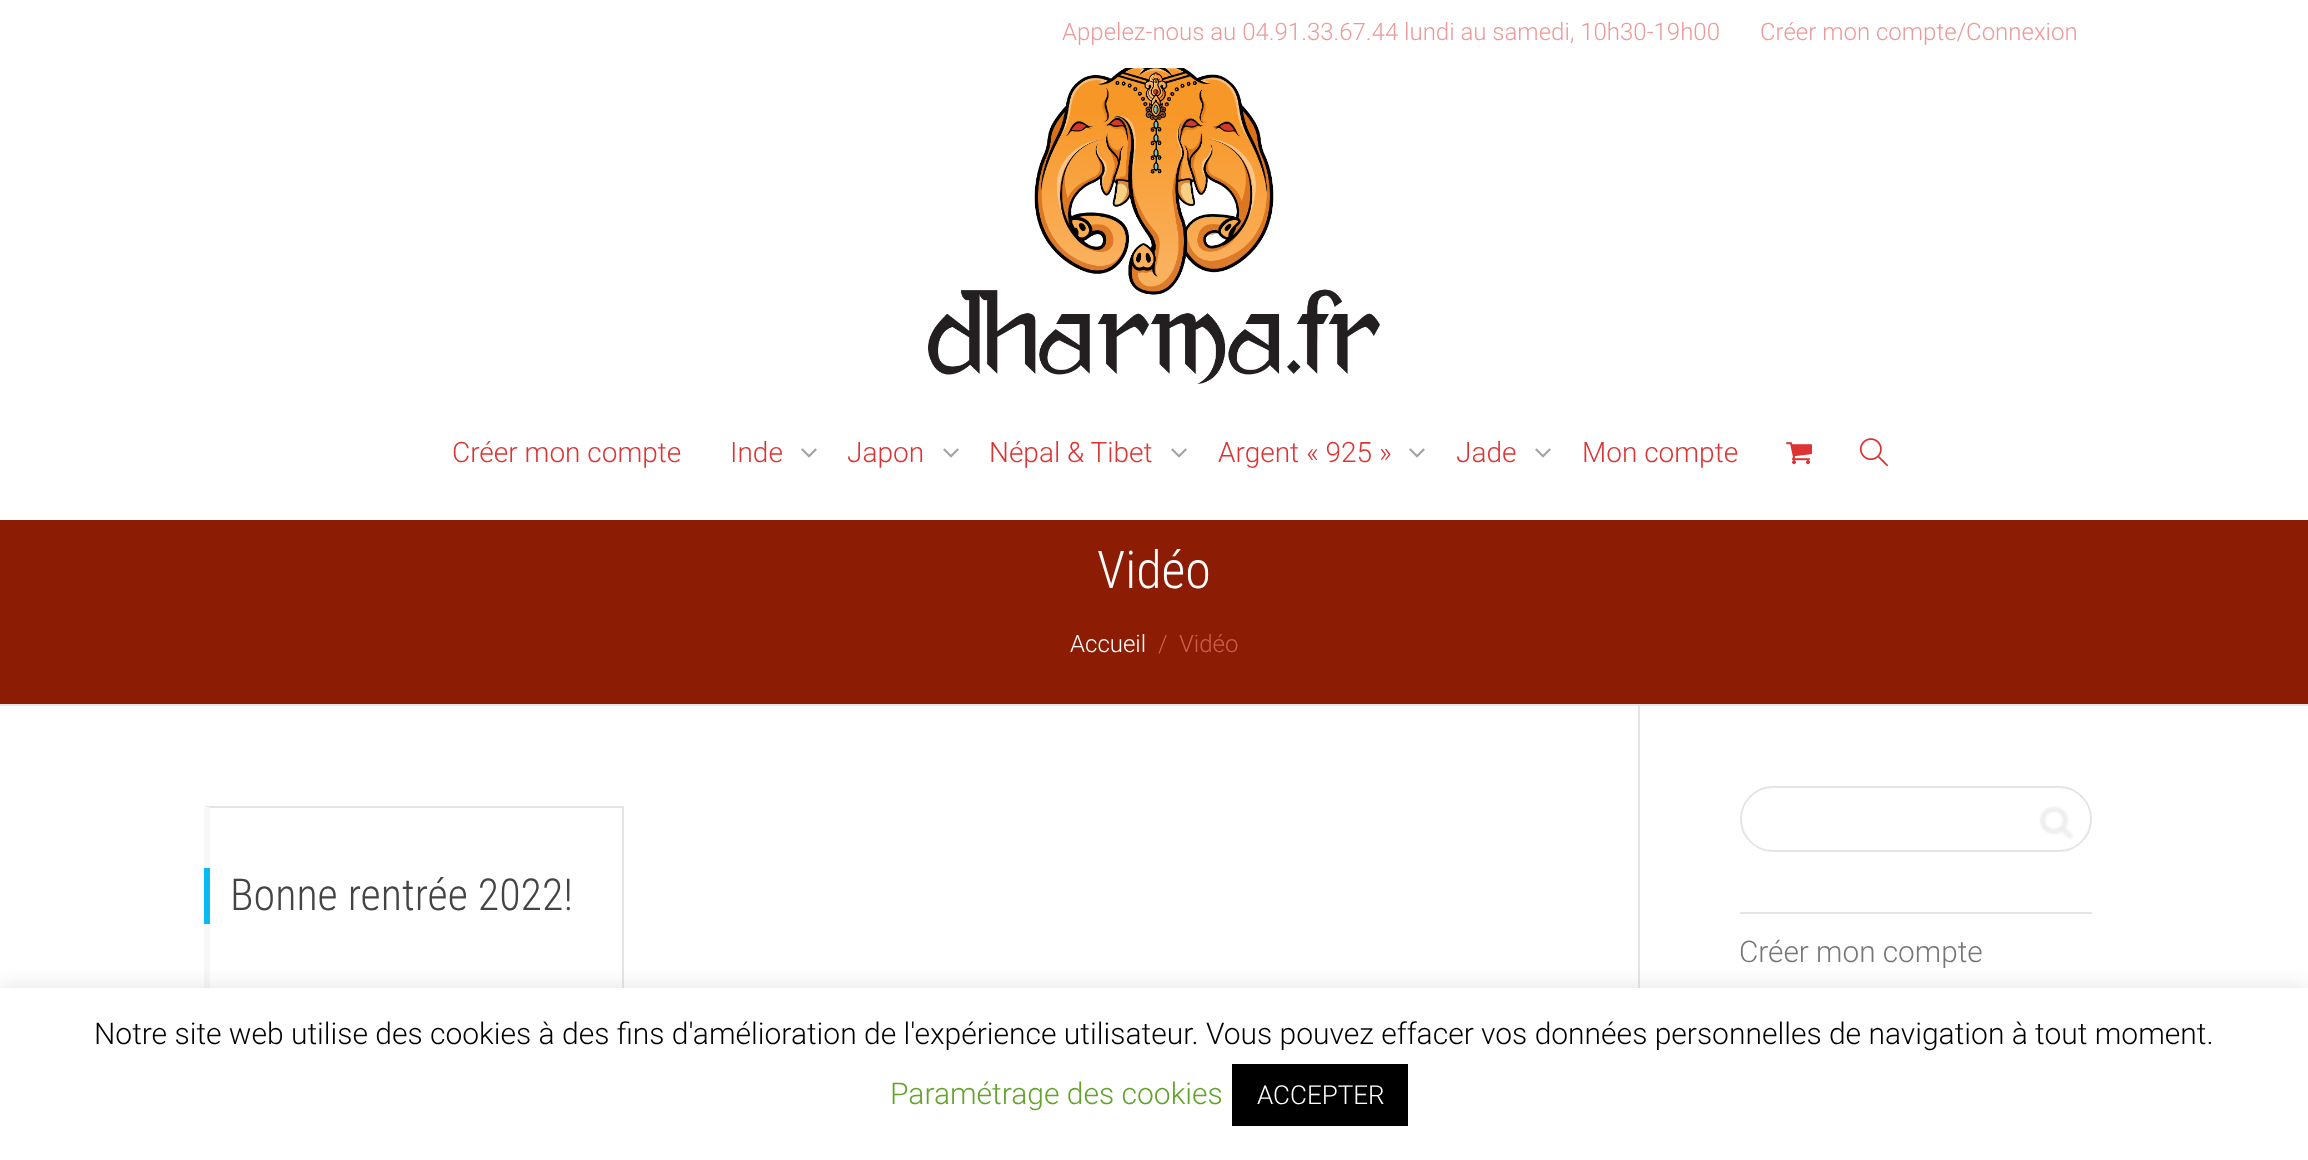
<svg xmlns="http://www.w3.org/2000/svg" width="2308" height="1160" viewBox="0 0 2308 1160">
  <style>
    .t1 { font: 300 24px Roboto; fill: #e99; }
    .t2 { font: 300 28px Roboto; fill: #d33; }
    .t3 { font: 300 52px Roboto Condensed; fill: #fff; }
    .t4 { font: 300 24px Roboto; fill: #fff; }
    .t5 { font: 300 24px Roboto; fill: #cf5f47; }
    .t6 { font: 300 44px Roboto Condensed; fill: #444; }
    .t7 { font: 300 29.75px Roboto; fill: #777; }
    .t8 { font: 300 30px Roboto; fill: #000; }
    .t9 { font: 300 30px Roboto; fill: #62a329; }
    .t10 { font: 300 26px Roboto; fill: #fff; }
  </style>
  <rect width="100%" height="100%" fill="#fff"/>
  <text x="1062" y="40" class="t1">Appelez-nous au 04.91.33.67.44 lundi au samedi, 10h30-19h00</text>
  <text x="1760" y="40" class="t1">Créer mon compte/Connexion</text>
  <image x="928" y="68" width="452" height="316" href="images/1.png"/>
  <text x="452" y="462" class="t2">Créer mon compte</text>
  <text x="730" y="462" class="t2">Inde</text>
  <image x="801" y="448" width="16" height="10" href="images/2.png"/>
  <text x="847" y="462" class="t2">Japon</text>
  <image x="943" y="448" width="16" height="10" href="images/2.png"/>
  <text x="989" y="462" class="t2">Népal &amp; Tibet</text>
  <image x="1171" y="448" width="16" height="10" href="images/2.png"/>
  <text x="1218" y="462" class="t2">Argent « 925 »</text>
  <image x="1409" y="448" width="16" height="10" href="images/2.png"/>
  <text x="1456" y="462" class="t2">Jade</text>
  <image x="1535" y="448" width="16" height="10" href="images/2.png"/>
  <text x="1582" y="462" class="t2">Mon compte</text>
  <image x="1786" y="442" width="26" height="23" href="images/3.png"/>
  <image x="1859" y="438" width="29" height="29" href="images/4.png"/>
  <rect x="0" y="520" width="2308" height="184" fill="#8c1c03"/>
  <rect x="0" y="704" width="2308" height="2" fill="#e5e5e5"/>
  <text x="1097" y="588" class="t3">Vidéo</text>
  <text x="1070" y="652" class="t4">Accueil</text>
  <text x="1158" y="652" class="t5">/</text>
  <text x="1179" y="652" class="t5">Vidéo</text>
  <rect x="1638" y="706" width="2" height="282" fill="#e5e5e5"/>
  <path d="M204 806H624L622 808H210Z" fill="#e5e5e5"/>
  <rect x="622" y="806" width="2" height="182" fill="#e5e5e5"/>
  <path d="M204 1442V806L210 808V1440Z" fill="#f7f7f7"/>
  <rect x="204" y="868" width="6" height="56" fill="#07baf4"/>
  <text x="230" y="910" class="t6">Bonne rentrée 2022!</text>
  <rect x="1741" y="787" width="350" height="64" rx="32" fill="none" stroke="#e5e5e5" stroke-width="2"/>
  <image x="2039" y="806" width="35" height="34" href="images/5.png"/>
  <rect x="1740" y="912" width="352" height="2" fill="#e5e5e5"/>
  <text x="1739" y="962" class="t7">Créer mon compte</text>
  <rect x="0" y="986" width="2308" height="172" fill="#acabab4d" filter="blur(10px)"/>
  <rect x="0" y="988" width="2308" height="172" fill="#fff"/>
  <text x="94" y="1044" class="t8">Notre site web utilise des cookies à des fins d'amélioration de l'expérience utilisateur. Vous pouvez effacer vos données personnelles de navigation à tout moment.</text>
  <text x="890" y="1104" class="t9">Paramétrage des cookies</text>
  <rect x="1232" y="1064" width="176" height="62" fill="#000"/>
  <text x="1257" y="1104" class="t10">ACCEPTER</text>
</svg>
